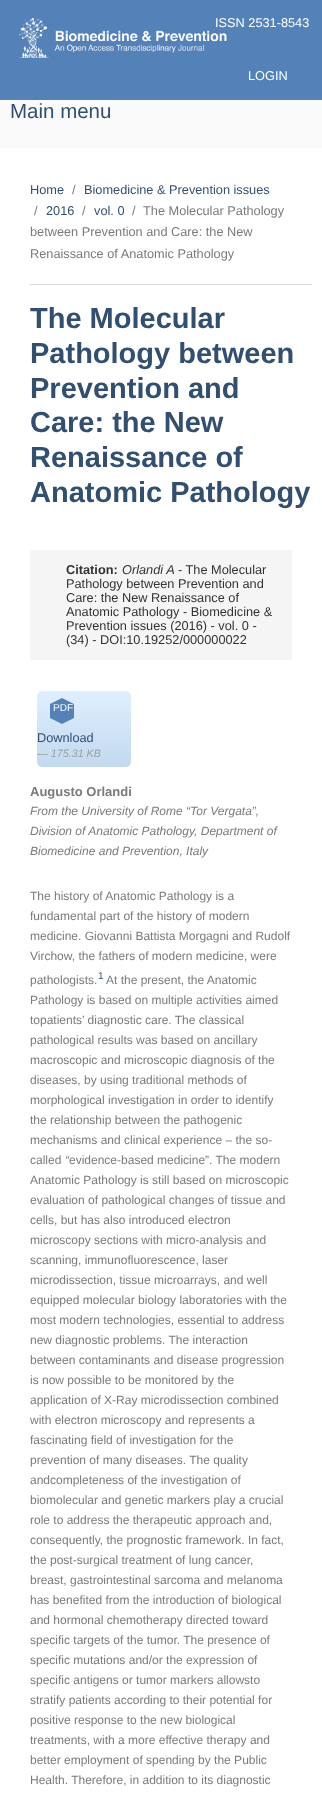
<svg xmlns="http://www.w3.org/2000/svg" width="322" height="1799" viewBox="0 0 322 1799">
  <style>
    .t1 { font: 12.75px Liberation Sans; fill: #fff; }
    .t2 { font: 20.5px Liberation Sans; fill: #314f71; }
    .t3 { font: 12.75px Liberation Sans; fill: #314f71; }
    .t4 { font: 12.75px Liberation Sans; fill: #7a7a7a; }
    .t5 { font: bold 29px Liberation Sans; fill: #314f71; }
    .t6 { font: bold 12.75px Liberation Sans; fill: #323232; }
    .t7 { font: italic 12.75px Liberation Sans; fill: #323232; }
    .t8 { font: 12.75px Liberation Sans; fill: #323232; }
    .t9 { font: 10px Liberation Sans; fill: #fff; }
    .t10 { font: italic 10.75px Liberation Sans; fill: #9f9f9f; }
    .t11 { font: bold 13px Liberation Sans; fill: #7a7a7a; }
    .t12 { font: italic 12px Liberation Sans; fill: #7a7a7a; }
    .t13 { font: 12px Liberation Sans; fill: #7a7a7a; }
    .t14 { font: 10px Liberation Sans; fill: #314f71; }
  </style>
  <defs>
    <linearGradient id="g1" gradientUnits="userSpaceOnUse" x1="84" y1="691" x2="84" y2="767"><stop offset="0" stop-color="#dfefff"/><stop offset="1" stop-color="#c2d9ef"/></linearGradient>
  </defs>
  <rect width="100%" height="100%" fill="#5282b7"/>
  <image x="18" y="17" width="209" height="42" href="images/1.png"/>
  <text x="215" y="27" class="t1">ISSN 2531-8543</text>
  <text x="248" y="80" class="t1">LOGIN</text>
  <rect x="0" y="100" width="322" height="48" fill="#fafafa"/>
  <text x="10" y="118" class="t2">Main menu</text>
  <rect x="0" y="148" width="322" height="1" fill="#fcfcfc"/>
  <rect x="0" y="149" width="322" height="1650" fill="#fff"/>
  <text x="30" y="194" class="t3">Home</text>
  <text x="72" y="194" class="t4">/</text>
  <text x="84" y="194" class="t3">Biomedicine &amp; Prevention issues</text>
  <text x="34" y="215" class="t4">/</text>
  <text x="46" y="215" class="t3">2016</text>
  <text x="82" y="215" class="t4">/</text>
  <text x="94" y="215" class="t3">vol. 0</text>
  <text x="132" y="215" class="t4">/</text>
  <text x="143" y="215" class="t4">The Molecular Pathology</text>
  <text x="30" y="236" class="t4">between Prevention and Care: the New</text>
  <text x="30" y="258" class="t4">Renaissance of Anatomic Pathology</text>
  <rect x="30" y="284" width="282" height="1" fill="#d8d8d8"/>
  <text x="30" y="328" class="t5">The Molecular</text>
  <text x="30" y="363" class="t5">Pathology between</text>
  <text x="30" y="398" class="t5">Prevention and</text>
  <text x="30" y="432" class="t5">Care: the New</text>
  <text x="30" y="467" class="t5">Renaissance of</text>
  <text x="30" y="502" class="t5">Anatomic Pathology</text>
  <rect x="30" y="550" width="262" height="110" fill="#f5f5f5"/>
  <text x="66" y="574" class="t6">Citation:</text>
  <text x="122" y="574" class="t7">Orlandi A</text>
  <text x="178" y="574" class="t8">- The Molecular</text>
  <text x="66" y="588" class="t8">Pathology between Prevention and</text>
  <text x="66" y="602" class="t8">Care: the New Renaissance of</text>
  <text x="66" y="616" class="t8">Anatomic Pathology - Biomedicine &amp;</text>
  <text x="66" y="630" class="t8">Prevention issues (2016) - vol. 0 -</text>
  <text x="66" y="644" class="t8">(34) - DOI:10.19252/000000022</text>
  <rect x="37" y="691" width="94" height="76" rx="5" fill="url(#g1)"/>
  <rect x="50" y="704" width="24" height="14" fill="#5282b7"/>
  <path d="M74 704H50L62 698ZM50 718H74L62 724Z" fill="#5282b7"/>
  <text x="53" y="711" class="t9">PDF</text>
  <text x="37" y="742" class="t3">Download</text>
  <text x="37" y="757" class="t10">— 175.31 KB</text>
  <text x="30" y="796" class="t11">Augusto Orlandi</text>
  <text x="30" y="815" class="t12">From the University of Rome “Tor Vergata”,</text>
  <text x="30" y="835" class="t12">Division of Anatomic Pathology, Department of</text>
  <text x="30" y="855" class="t12">Biomedicine and Prevention, Italy</text>
  <text x="30" y="900" class="t13">The history of Anatomic Pathology is a</text>
  <text x="30" y="920" class="t13">fundamental part of the history of modern</text>
  <text x="30" y="940" class="t13">medicine. Giovanni Battista Morgagni and Rudolf</text>
  <text x="30" y="960" class="t13">Virchow, the fathers of modern medicine, were</text>
  <text x="30" y="984" class="t13">pathologists.</text>
  <text x="98" y="979" class="t14">1</text>
  <text x="106" y="984" class="t13">At the present, the Anatomic</text>
  <text x="30" y="1004" class="t13">Pathology is based on multiple activities aimed</text>
  <text x="30" y="1024" class="t13">topatients’ diagnostic care. The classical</text>
  <text x="30" y="1044" class="t13">pathological results was based on ancillary</text>
  <text x="30" y="1064" class="t13">macroscopic and microscopic diagnosis of the</text>
  <text x="30" y="1084" class="t13">diseases, by using traditional methods of</text>
  <text x="30" y="1104" class="t13">morphological investigation in order to identify</text>
  <text x="30" y="1124" class="t13">the relationship between the pathogenic</text>
  <text x="30" y="1144" class="t13">mechanisms and clinical experience – the so-</text>
  <text x="30" y="1164" class="t13">called</text>
  <text x="65" y="1164" class="t12">“</text>
  <text x="69" y="1164" class="t13">evidence-based medicine”. The modern</text>
  <text x="30" y="1184" class="t13">Anatomic Pathology is still based on microscopic</text>
  <text x="30" y="1204" class="t13">evaluation of pathological changes of tissue and</text>
  <text x="30" y="1224" class="t13">cells, but has also introduced electron</text>
  <text x="30" y="1244" class="t13">microscopy sections with micro-analysis and</text>
  <text x="30" y="1264" class="t13">scanning, immunofluorescence, laser</text>
  <text x="30" y="1284" class="t13">microdissection, tissue microarrays, and well</text>
  <text x="30" y="1304" class="t13">equipped molecular biology laboratories with the</text>
  <text x="30" y="1324" class="t13">most modern technologies, essential to address</text>
  <text x="30" y="1344" class="t13">new diagnostic problems. The interaction</text>
  <text x="30" y="1364" class="t13">between contaminants and disease progression</text>
  <text x="30" y="1384" class="t13">is now possible to be monitored by the</text>
  <text x="30" y="1404" class="t13">application of X-Ray microdissection combined</text>
  <text x="30" y="1424" class="t13">with electron microscopy and represents a</text>
  <text x="30" y="1444" class="t13">fascinating field of investigation for the</text>
  <text x="30" y="1464" class="t13">prevention of many diseases. The quality</text>
  <text x="30" y="1484" class="t13">andcompleteness of the investigation of</text>
  <text x="30" y="1504" class="t13">biomolecular and genetic markers play a crucial</text>
  <text x="30" y="1524" class="t13">role to address the therapeutic approach and,</text>
  <text x="30" y="1544" class="t13">consequently, the prognostic framework. In fact,</text>
  <text x="30" y="1564" class="t13">the post-surgical treatment of lung cancer,</text>
  <text x="30" y="1584" class="t13">breast, gastrointestinal sarcoma and melanoma</text>
  <text x="30" y="1604" class="t13">has benefited from the introduction of biological</text>
  <text x="30" y="1624" class="t13">and hormonal chemotherapy directed toward</text>
  <text x="30" y="1644" class="t13">specific targets of the tumor. The presence of</text>
  <text x="30" y="1664" class="t13">specific mutations and/or the expression of</text>
  <text x="30" y="1684" class="t13">specific antigens or tumor markers allowsto</text>
  <text x="30" y="1704" class="t13">stratify patients according to their potential for</text>
  <text x="30" y="1724" class="t13">positive response to the new biological</text>
  <text x="30" y="1744" class="t13">treatments, with a more effective therapy and</text>
  <text x="30" y="1764" class="t13">better employment of spending by the Public</text>
  <text x="30" y="1784" class="t13">Health. Therefore, in addition to its diagnostic</text>
</svg>
